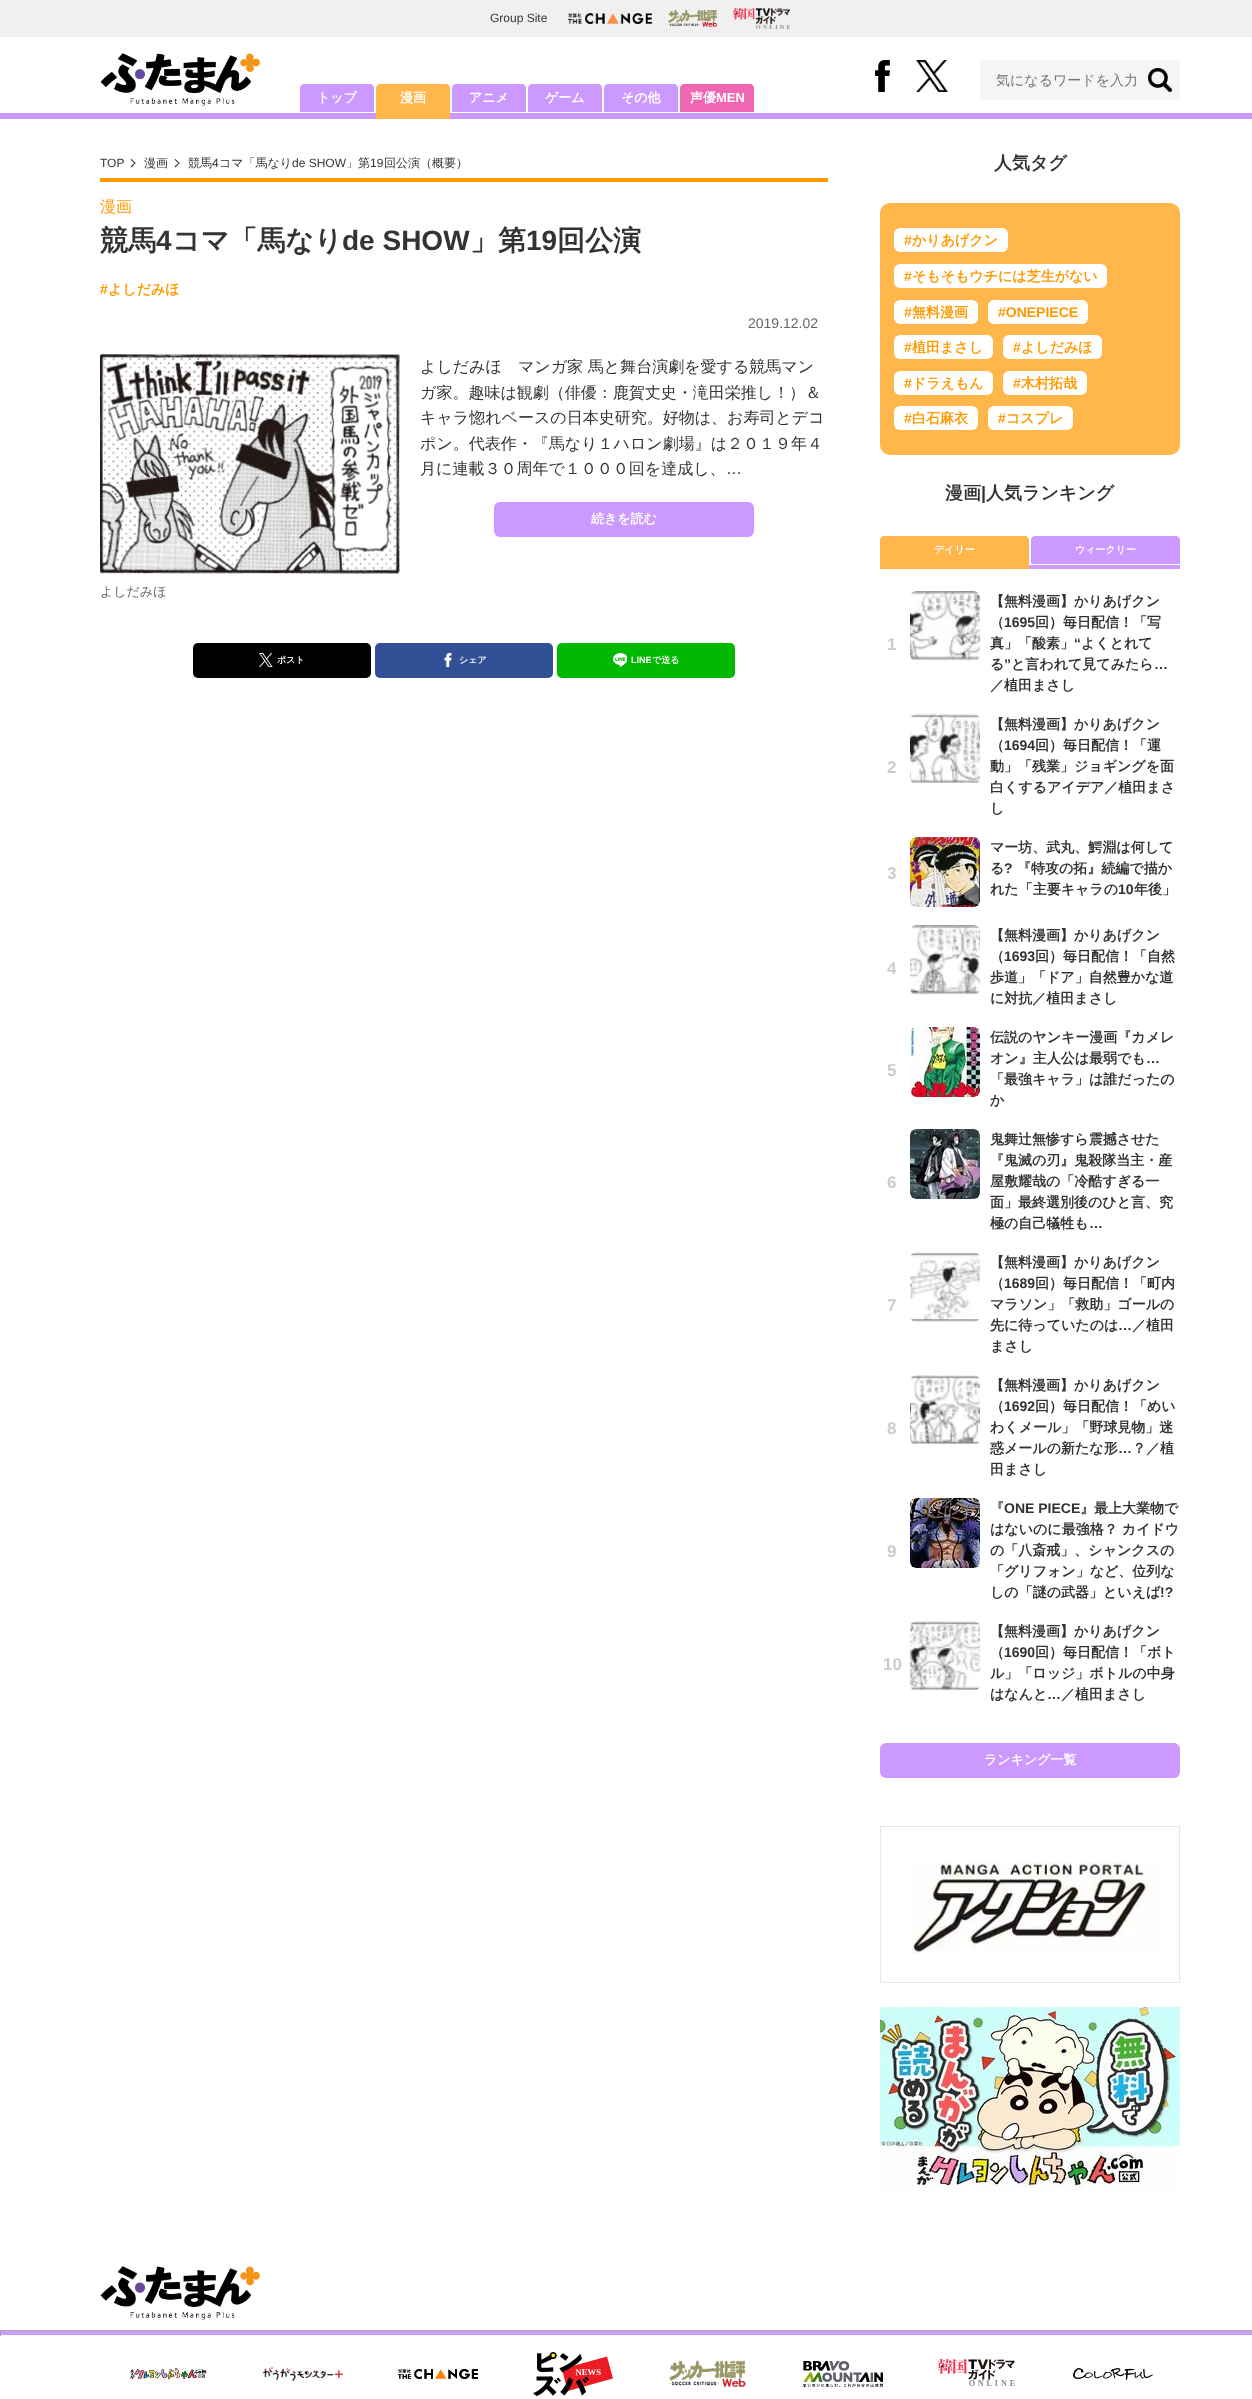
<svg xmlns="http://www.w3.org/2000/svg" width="1252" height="2399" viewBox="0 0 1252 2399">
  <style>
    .t1 { font: 12px Liberation Sans; fill: #333; }
    .t2 { font: 500 14px WenQuanYi Zen Hei; fill: #757575; }
    .t3 { font: bold 13px WenQuanYi Zen Hei; fill: #fff; }
    .t4 { font: bold 13px Liberation Sans; fill: #fff; }
    .t5 { font: 500 12px WenQuanYi Zen Hei; fill: #333; }
    .t6 { font: 500 16px WenQuanYi Zen Hei; fill: #f90; }
    .t7 { font: bold 28px WenQuanYi Zen Hei; fill: #333; }
    .t8 { font: bold 28px Liberation Sans; fill: #333; }
    .t9 { font: bold 14px Liberation Sans; fill: #f90; }
    .t10 { font: bold 14px WenQuanYi Zen Hei; fill: #f90; }
    .t11 { font: 14px Liberation Sans; fill: #666; }
    .t12 { font: 500 16px WenQuanYi Zen Hei; fill: #333; }
    .t13 { font: 16px Liberation Sans; fill: #333; }
    .t14 { font: 500 13px WenQuanYi Zen Hei; fill: #666; }
    .t15 { font: bold 9px WenQuanYi Zen Hei; fill: #fff; }
    .t16 { font: bold 9px Liberation Sans; fill: #fff; }
    .t17 { font: bold 18px WenQuanYi Zen Hei; fill: #333; }
    .t18 { font: bold 18px Liberation Sans; fill: #333; }
    .t19 { font: bold 10px WenQuanYi Zen Hei; fill: #fff; }
    .t20 { font: bold 17px Liberation Sans; fill: #ccc; }
    .t21 { font: bold 14px WenQuanYi Zen Hei; fill: #333; }
    .t22 { font: bold 14px Liberation Sans; fill: #333; }
  </style>
  <rect width="100%" height="100%" fill="#fff"/>
  <rect x="0" y="0" width="1252" height="37" fill="#f0f0f0"/>
  <text x="490" y="22" class="t1">Group Site</text>
  <image x="568" y="13" width="84" height="11" href="images/1.png"/>
  <image x="668" y="10" width="49" height="17" href="images/2.png"/>
  <image x="733" y="8" width="57" height="21" href="images/3.png"/>
  <image x="100" y="53" width="160" height="53" href="images/4.png"/>
  <image x="875" y="60" width="15" height="32" href="images/5.png"/>
  <image x="916" y="60" width="32" height="32" href="images/6.png"/>
  <rect x="980" y="60" width="200" height="40" rx="5" fill="#f5f5f5"/>
  <image x="1148" y="68" width="24" height="24" href="images/7.png"/>
  <text x="996" y="85" class="t2">気になるワードを入力</text>
  <path d="M304 84H370C372 84 374 86 374 88V112H300V88C300 86 302 84 304 84Z" fill="#c9f"/>
  <text x="317" y="102" class="t3">トップ</text>
  <rect x="0" y="113" width="1252" height="6" fill="#c9f"/>
  <path d="M380 84H446C448 84 450 86 450 88V119H376V88C376 86 378 84 380 84Z" fill="#ffb74c"/>
  <text x="400" y="102" class="t3">漫画</text>
  <path d="M456 84H522C524 84 526 86 526 88V112H452V88C452 86 454 84 456 84Z" fill="#c9f"/>
  <text x="469" y="102" class="t3">アニメ</text>
  <path d="M532 84H598C600 84 602 86 602 88V112H528V88C528 86 530 84 532 84Z" fill="#c9f"/>
  <text x="545" y="102" class="t3">ゲーム</text>
  <path d="M608 84H674C676 84 678 86 678 88V112H604V88C604 86 606 84 608 84Z" fill="#c9f"/>
  <text x="621" y="102" class="t3">その他</text>
  <path d="M684 84H750C752 84 754 86 754 88V112H680V88C680 86 682 84 684 84Z" fill="#ef66b2"/>
  <text x="690" y="102" class="t3">声優</text>
  <text x="716" y="102" class="t4">MEN</text>
  <text x="100" y="167" class="t1">TOP</text>
  <path d="M131.5 159L135.5 163L135 164L130.5 159.5Z" fill="#333"/>
  <path d="M135 162.5L135.5 163L131.5 167.5L130.5 166.5Z" fill="#333"/>
  <text x="144" y="167" class="t5">漫画</text>
  <path d="M175.5 159L179.5 163L179 164L174.5 159.5Z" fill="#333"/>
  <path d="M179 162.5L179.5 163L175.5 167.5L174.5 166.5Z" fill="#333"/>
  <text x="188" y="167" class="t5">競馬</text>
  <text x="212" y="167" class="t1">4</text>
  <text x="219" y="167" class="t5">コマ「馬なり</text>
  <text x="292" y="167" class="t1">de SHOW</text>
  <text x="346" y="167" class="t5">」第</text>
  <text x="370" y="167" class="t1">19</text>
  <text x="384" y="167" class="t5">回公演（概要）</text>
  <rect x="100" y="178" width="728" height="4" fill="#f90"/>
  <text x="100" y="212" class="t6">漫画</text>
  <text x="100" y="250" class="t7">競馬</text>
  <text x="156" y="250" class="t8">4</text>
  <text x="172" y="250" class="t7">コマ「馬なり</text>
  <text x="342" y="250" class="t8">de SHOW</text>
  <text x="470" y="250" class="t7">」第</text>
  <text x="526" y="250" class="t8">19</text>
  <text x="557" y="250" class="t7">回公演</text>
  <text x="100" y="294" class="t9">#</text>
  <text x="108" y="294" class="t10">よしだみほ</text>
  <text x="748" y="328" class="t11">2019.12.02</text>
  <text x="420" y="372" class="t12">よしだみほ　マンガ家 馬と舞台演劇を愛する競馬マン</text>
  <text x="420" y="398" class="t12">ガ家。趣味は観劇（俳優：鹿賀丈史・滝田栄推し！）＆</text>
  <text x="420" y="423" class="t12">キャラ惚れベースの日本史研究。好物は、お寿司とデコ</text>
  <text x="420" y="449" class="t12">ポン。代表作・『馬なり１ハロン劇場』は２０１９年４</text>
  <text x="420" y="474" class="t12">月に連載３０周年で１０００回を達成し、</text>
  <text x="726" y="474" class="t13">…</text>
  <rect x="494" y="502" width="260" height="35" rx="6" fill="#c9f"/>
  <text x="591" y="523" class="t3">続きを読む</text>
  <image x="100" y="354" width="300" height="220" href="images/8.png"/>
  <text x="100" y="596" class="t14">よしだみほ</text>
  <rect x="193" y="643" width="178" height="35" rx="5" fill="#000"/>
  <image x="259" y="653" width="14" height="14" href="images/9.png"/>
  <text x="277" y="663" class="t15">ポスト</text>
  <rect x="375" y="643" width="178" height="35" rx="5" fill="#315096"/>
  <image x="444" y="653" width="8" height="14" href="images/10.png"/>
  <text x="459" y="663" class="t15">シェア</text>
  <rect x="557" y="643" width="178" height="35" rx="5" fill="#00b900"/>
  <image x="613" y="653" width="14" height="14" href="images/11.png"/>
  <text x="631" y="663" class="t16">LINE</text>
  <text x="652" y="663" class="t15">で送る</text>
  <text x="994" y="169" class="t17">人気タグ</text>
  <rect x="880" y="203" width="300" height="252" rx="10" fill="#ffb74c"/>
  <rect x="894" y="228" width="114" height="24" rx="6" fill="#fff"/>
  <text x="904" y="245" class="t9">#</text>
  <text x="912" y="245" class="t10">かりあげクン</text>
  <rect x="894" y="264" width="213" height="24" rx="6" fill="#fff"/>
  <text x="904" y="281" class="t9">#</text>
  <text x="912" y="281" class="t10">そもそもウチには芝生がない</text>
  <rect x="894" y="300" width="84" height="24" rx="6" fill="#fff"/>
  <text x="904" y="317" class="t9">#</text>
  <text x="912" y="317" class="t10">無料漫画</text>
  <rect x="988" y="300" width="100" height="24" rx="6" fill="#fff"/>
  <text x="998" y="317" class="t9">#ONEPIECE</text>
  <rect x="894" y="335" width="99" height="24" rx="6" fill="#fff"/>
  <text x="904" y="352" class="t9">#</text>
  <text x="912" y="352" class="t10">植田まさし</text>
  <rect x="1003" y="335" width="99" height="24" rx="6" fill="#fff"/>
  <text x="1013" y="352" class="t9">#</text>
  <text x="1021" y="352" class="t10">よしだみほ</text>
  <rect x="894" y="371" width="99" height="24" rx="6" fill="#fff"/>
  <text x="904" y="388" class="t9">#</text>
  <text x="912" y="388" class="t10">ドラえもん</text>
  <rect x="1003" y="371" width="84" height="24" rx="6" fill="#fff"/>
  <text x="1013" y="388" class="t9">#</text>
  <text x="1021" y="388" class="t10">木村拓哉</text>
  <rect x="894" y="406" width="84" height="24" rx="6" fill="#fff"/>
  <text x="904" y="423" class="t9">#</text>
  <text x="912" y="423" class="t10">白石麻衣</text>
  <rect x="988" y="406" width="85" height="24" rx="6" fill="#fff"/>
  <text x="998" y="423" class="t9">#</text>
  <text x="1006" y="423" class="t10">コスプレ</text>
  <text x="945" y="499" class="t17">漫画</text>
  <text x="981" y="499" class="t18">|</text>
  <text x="986" y="499" class="t17">人気ランキング</text>
  <path d="M884 536H1025C1027 536 1029 538 1029 540V569H880V540C880 538 882 536 884 536Z" fill="#ffb74c"/>
  <text x="934" y="553" class="t19">デイリー</text>
  <path d="M1035 536H1176C1178 536 1180 538 1180 540V564H1031V540C1031 538 1033 536 1035 536Z" fill="#c9f"/>
  <text x="1075" y="553" class="t19">ウィークリー</text>
  <rect x="1029" y="565" width="151" height="4" fill="#c9f"/>
  <text x="887" y="650" class="t20">1</text>
  <image x="910" y="591" width="70" height="70" href="images/12.png"/>
  <text x="990" y="606" class="t21">【無料漫画】かりあげクン</text>
  <text x="990" y="627" class="t21">（</text>
  <text x="1004" y="627" class="t22">1695</text>
  <text x="1035" y="627" class="t21">回）毎日配信！「写</text>
  <text x="990" y="648" class="t21">真」「酸素」</text>
  <text x="1074" y="648" class="t22">“</text>
  <text x="1081" y="648" class="t21">よくとれて</text>
  <text x="990" y="669" class="t21">る</text>
  <text x="1004" y="669" class="t22">”</text>
  <text x="1011" y="669" class="t21">と言われて見てみたら</text>
  <text x="1154" y="669" class="t22">…</text>
  <text x="990" y="690" class="t21">／植田まさし</text>
  <text x="887" y="773" class="t20">2</text>
  <image x="910" y="714" width="70" height="69" href="images/13.png"/>
  <text x="990" y="729" class="t21">【無料漫画】かりあげクン</text>
  <text x="990" y="750" class="t21">（</text>
  <text x="1004" y="750" class="t22">1694</text>
  <text x="1035" y="750" class="t21">回）毎日配信！「運</text>
  <text x="990" y="771" class="t21">動」「残業」ジョギングを面</text>
  <text x="990" y="792" class="t21">白くするアイデア／植田まさ</text>
  <text x="990" y="813" class="t21">し</text>
  <text x="887" y="879" class="t20">3</text>
  <image x="910" y="837" width="70" height="70" href="images/14.png"/>
  <text x="990" y="852" class="t21">マー坊、武丸、鰐淵は何して</text>
  <text x="990" y="873" class="t21">る</text>
  <text x="1004" y="873" class="t22">?</text>
  <text x="1017" y="873" class="t21">『特攻の拓』続編で描か</text>
  <text x="990" y="894" class="t21">れた「主要キャラの</text>
  <text x="1118" y="894" class="t22">10</text>
  <text x="1134" y="894" class="t21">年後」</text>
  <text x="887" y="974" class="t20">4</text>
  <image x="910" y="925" width="70" height="70" href="images/15.png"/>
  <text x="990" y="940" class="t21">【無料漫画】かりあげクン</text>
  <text x="990" y="961" class="t21">（</text>
  <text x="1004" y="961" class="t22">1693</text>
  <text x="1035" y="961" class="t21">回）毎日配信！「自然</text>
  <text x="990" y="982" class="t21">歩道」「ドア」自然豊かな道</text>
  <text x="990" y="1003" class="t21">に対抗／植田まさし</text>
  <text x="887" y="1076" class="t20">5</text>
  <image x="910" y="1027" width="70" height="70" href="images/16.png"/>
  <text x="990" y="1042" class="t21">伝説のヤンキー漫画『カメレ</text>
  <text x="990" y="1063" class="t21">オン』主人公は最弱でも</text>
  <text x="1146" y="1063" class="t22">…</text>
  <text x="990" y="1084" class="t21">「最強キャラ」は誰だったの</text>
  <text x="990" y="1105" class="t21">か</text>
  <text x="887" y="1188" class="t20">6</text>
  <image x="910" y="1129" width="70" height="70" href="images/17.png"/>
  <text x="990" y="1144" class="t21">鬼舞辻無惨すら震撼させた</text>
  <text x="990" y="1165" class="t21">『鬼滅の刃』鬼殺隊当主・産</text>
  <text x="990" y="1186" class="t21">屋敷耀哉の「冷酷すぎる一</text>
  <text x="990" y="1207" class="t21">面」最終選別後のひと言、究</text>
  <text x="990" y="1228" class="t21">極の自己犠牲も</text>
  <text x="1089" y="1228" class="t22">…</text>
  <text x="887" y="1311" class="t20">7</text>
  <image x="910" y="1252" width="70" height="70" href="images/18.png"/>
  <text x="990" y="1267" class="t21">【無料漫画】かりあげクン</text>
  <text x="990" y="1288" class="t21">（</text>
  <text x="1004" y="1288" class="t22">1689</text>
  <text x="1035" y="1288" class="t21">回）毎日配信！「町内</text>
  <text x="990" y="1309" class="t21">マラソン」「救助」ゴールの</text>
  <text x="990" y="1330" class="t21">先に待っていたのは</text>
  <text x="1118" y="1330" class="t22">…</text>
  <text x="1132" y="1330" class="t21">／植田</text>
  <text x="990" y="1351" class="t21">まさし</text>
  <text x="887" y="1434" class="t20">8</text>
  <image x="910" y="1375" width="70" height="70" href="images/19.png"/>
  <text x="990" y="1390" class="t21">【無料漫画】かりあげクン</text>
  <text x="990" y="1411" class="t21">（</text>
  <text x="1004" y="1411" class="t22">1692</text>
  <text x="1035" y="1411" class="t21">回）毎日配信！「めい</text>
  <text x="990" y="1432" class="t21">わくメール」「野球見物」迷</text>
  <text x="990" y="1453" class="t21">惑メールの新たな形</text>
  <text x="1118" y="1453" class="t22">…</text>
  <text x="1132" y="1453" class="t21">？／植</text>
  <text x="990" y="1474" class="t21">田まさし</text>
  <text x="887" y="1557" class="t20">9</text>
  <image x="910" y="1498" width="70" height="70" href="images/20.png"/>
  <text x="990" y="1513" class="t21">『</text>
  <text x="1004" y="1513" class="t22">ONE PIECE</text>
  <text x="1080" y="1513" class="t21">』最上大業物で</text>
  <text x="990" y="1534" class="t21">はないのに最強格？ カイドウ</text>
  <text x="990" y="1555" class="t21">の「八斎戒」、シャンクスの</text>
  <text x="990" y="1576" class="t21">「グリフォン」など、位列な</text>
  <text x="990" y="1597" class="t21">しの「謎の武器」といえば</text>
  <text x="1160" y="1597" class="t22">!?</text>
  <text x="883" y="1670" class="t20">10</text>
  <image x="910" y="1621" width="70" height="69" href="images/21.png"/>
  <text x="990" y="1636" class="t21">【無料漫画】かりあげクン</text>
  <text x="990" y="1657" class="t21">（</text>
  <text x="1004" y="1657" class="t22">1690</text>
  <text x="1035" y="1657" class="t21">回）毎日配信！「ボト</text>
  <text x="990" y="1678" class="t21">ル」「ロッジ」ボトルの中身</text>
  <text x="990" y="1699" class="t21">はなんと</text>
  <text x="1047" y="1699" class="t22">…</text>
  <text x="1061" y="1699" class="t21">／植田まさし</text>
  <rect x="880" y="1743" width="300" height="35" rx="6" fill="#c9f"/>
  <text x="984" y="1764" class="t3">ランキング一覧</text>
  <rect x="880.5" y="1826.5" width="299" height="156" fill="none" stroke="#e6e6e6"/>
  <image x="913" y="1861" width="250" height="93" href="images/22.png"/>
  <image x="880" y="2007" width="300" height="184" href="images/23.png"/>
  <image x="100" y="2266" width="160" height="54" href="images/24.png"/>
  <rect x="0" y="2331" width="1252" height="4" fill="#c9f"/>
  <rect x="0" y="2330" width="1252" height="1" fill="#aaa"/>
  <rect x="0" y="2330" width="1" height="6" fill="#aaa"/>
  <image x="130" y="2368" width="77" height="11" href="images/25.png"/>
  <image x="263" y="2367" width="80" height="14" href="images/26.png"/>
  <image x="398" y="2369" width="80" height="10" href="images/27.png"/>
  <image x="533" y="2352" width="80" height="44" href="images/28.png"/>
  <image x="669" y="2360" width="77" height="28" href="images/29.png"/>
  <image x="803" y="2361" width="80" height="26" href="images/30.png"/>
  <image x="938" y="2359" width="77" height="27" href="images/31.png"/>
  <image x="1073" y="2368" width="80" height="12" href="images/32.png"/>
</svg>
